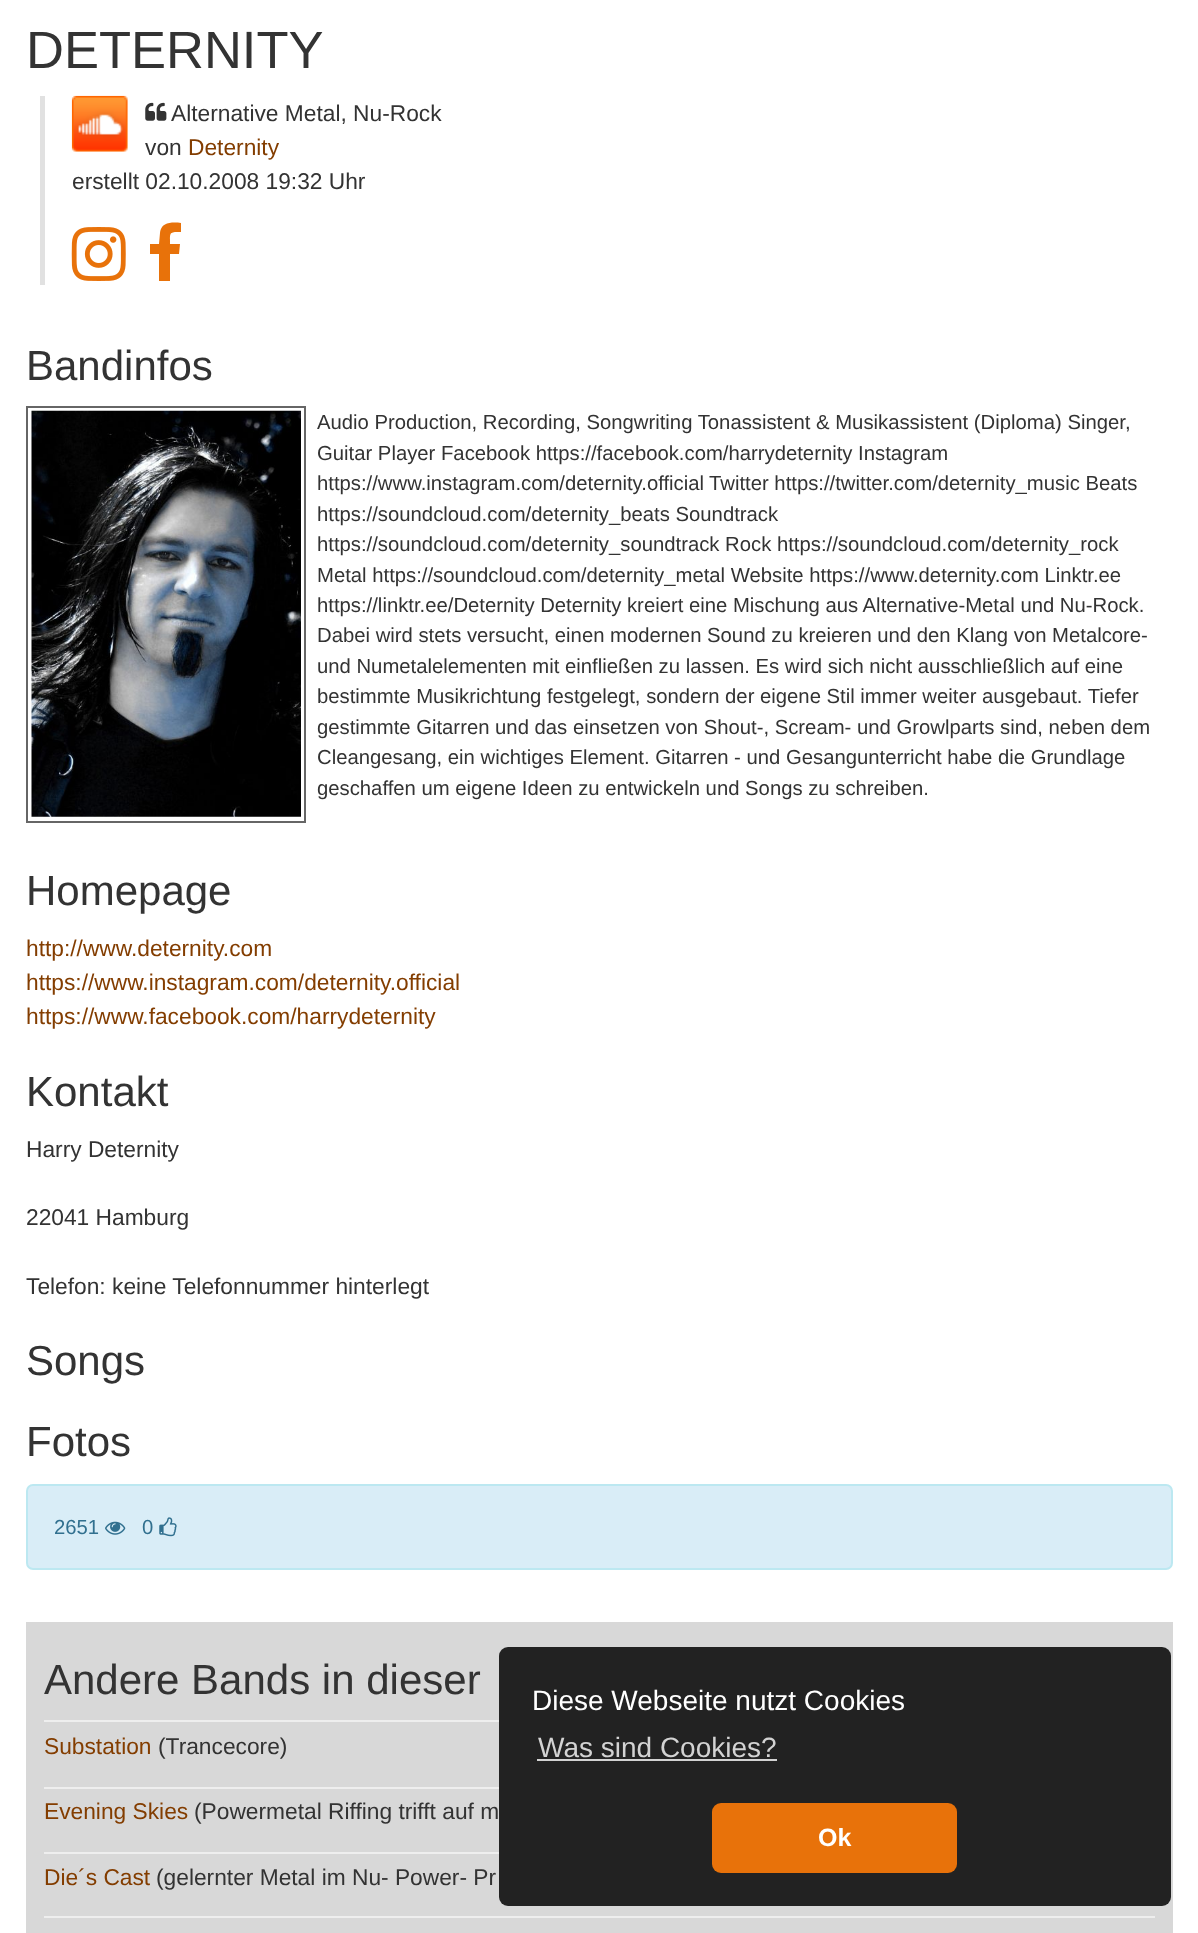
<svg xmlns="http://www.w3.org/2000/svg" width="1198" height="1933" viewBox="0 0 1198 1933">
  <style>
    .t1 { font: 52.5px Liberation Sans; fill: #333; }
    .t2 { font: 22.75px Liberation Sans; fill: #333; }
    .t3 { font: 22.75px Liberation Sans; fill: #833d00; }
    .t4 { font: 42px Liberation Sans; fill: #333; }
    .t5 { font: 20.3px Liberation Sans; fill: #333; }
    .t6 { font: 20.3px Liberation Sans; fill: #31708f; }
    .t7 { font: 28px Liberation Sans; fill: #fff; }
    .t8 { font: 28px Liberation Sans; fill: #d3d3d3; }
    .t9 { font: bold 25px Liberation Sans; fill: #fff; }
  </style>
  <rect width="100%" height="100%" fill="#fff"/>
  <text x="26" y="68" class="t1">DETERNITY</text>
  <rect x="40" y="96" width="5" height="189" fill="#e1e1e1"/>
  <image x="71" y="95" width="57" height="57" href="images/1.png"/>
  <image x="145" y="102" width="22" height="19" href="images/2.png"/>
  <text x="171" y="121" class="t2">Alternative Metal, Nu-Rock</text>
  <text x="145" y="155" class="t2">von</text>
  <text x="188" y="155" class="t3">Deternity</text>
  <text x="72" y="189" class="t2">erstellt 02.10.2008 19:32 Uhr</text>
  <image x="71" y="227" width="55" height="54" href="images/3.png"/>
  <path d="M181 223V232C169 232 170 232 170 244H180L179 254H170V281H159V254H150V244H159L160 233C161 222 172 222 181 223Z" fill="#e8720a"/>
  <text x="26" y="380" class="t4">Bandinfos</text>
  <rect x="27" y="407" width="278" height="415" fill="none" stroke="#666" stroke-width="2"/>
  <image x="31" y="410" width="270" height="407" href="images/4.png"/>
  <text x="317" y="429" class="t5">Audio Production, Recording, Songwriting Tonassistent &amp; Musikassistent (Diploma) Singer,</text>
  <text x="317" y="460" class="t5">Guitar Player Facebook https://facebook.com/harrydeternity Instagram</text>
  <text x="317" y="490" class="t5">https://www.instagram.com/deternity.official</text>
  <text x="709" y="490" class="t5">Twitter https://twitter.com/deternity_music Beats</text>
  <text x="317" y="521" class="t5">https://soundcloud.com/deternity_beats Soundtrack</text>
  <text x="317" y="551" class="t5">https://soundcloud.com/deternity_soundtrack Rock https://soundcloud.com/deternity_rock</text>
  <text x="317" y="582" class="t5">Metal https://soundcloud.com/deternity_metal Website https://www.deternity.com Linktr.ee</text>
  <text x="317" y="612" class="t5">https://linktr.ee/Deternity Deternity kreiert eine Mischung aus Alternative-Metal und Nu-Rock.</text>
  <text x="317" y="642" class="t5">Dabei wird stets versucht, einen modernen Sound zu kreieren und den Klang von Metalcore-</text>
  <text x="317" y="673" class="t5">und Numetalelementen mit einfließen zu lassen. Es wird sich nicht ausschließlich auf eine</text>
  <text x="317" y="703" class="t5">bestimmte Musikrichtung festgelegt, sondern der eigene Stil immer weiter ausgebaut. Tiefer</text>
  <text x="317" y="734" class="t5">gestimmte Gitarren und das einsetzen von Shout-, Scream- und Growlparts sind, neben dem</text>
  <text x="317" y="764" class="t5">Cleangesang, ein wichtiges Element. Gitarren - und Gesangunterricht habe die Grundlage</text>
  <text x="317" y="795" class="t5">geschaffen um eigene Ideen zu entwickeln und Songs zu schreiben.</text>
  <text x="26" y="905" class="t4">Homepage</text>
  <text x="26" y="956" class="t3">http://www.deternity.com</text>
  <text x="26" y="990" class="t3">https://www.instagram.com/deternity.official</text>
  <text x="26" y="1024" class="t3">https://www.facebook.com/harrydeternity</text>
  <text x="26" y="1106" class="t4">Kontakt</text>
  <text x="26" y="1157" class="t2">Harry Deternity</text>
  <text x="26" y="1225" class="t2">22041 Hamburg</text>
  <text x="26" y="1294" class="t2">Telefon: keine Telefonnummer hinterlegt</text>
  <text x="26" y="1375" class="t4">Songs</text>
  <text x="26" y="1456" class="t4">Fotos</text>
  <rect x="27" y="1485" width="1145" height="84" rx="6" fill="#d9edf7" stroke="#bce8f1" stroke-width="2"/>
  <text x="54" y="1534" class="t6">2651</text>
  <image x="105" y="1521" width="21" height="14" href="images/5.png"/>
  <text x="142" y="1534" class="t6">0</text>
  <image x="159" y="1517" width="18" height="20" href="images/6.png"/>
  <rect x="26" y="1622" width="1147" height="311" fill="#d8d8d8"/>
  <text x="44" y="1694" class="t4">Andere Bands in dieser</text>
  <rect x="44" y="1720" width="455" height="2" fill="#eee"/>
  <text x="44" y="1754" class="t3">Substation</text>
  <text x="158" y="1754" class="t2">(Trancecore)</text>
  <rect x="44" y="1787" width="455" height="2" fill="#eee"/>
  <text x="44" y="1819" class="t3">Evening Skies</text>
  <text x="194" y="1819" class="t2">(Powermetal Riffing trifft auf m</text>
  <rect x="44" y="1852" width="455" height="2" fill="#eee"/>
  <text x="44" y="1885" class="t3">Die´s Cast</text>
  <text x="156" y="1885" class="t2">(gelernter Metal im Nu- Power- Pr</text>
  <rect x="44" y="1916" width="1111" height="2" fill="#eee"/>
  <rect x="499" y="1647" width="672" height="259" rx="9" fill="#222"/>
  <text x="532" y="1710" class="t7">Diese Webseite nutzt Cookies</text>
  <text x="538" y="1757" class="t8">Was sind Cookies?</text>
  <rect x="537" y="1759" width="240" height="2" fill="#d3d3d3"/>
  <rect x="712" y="1803" width="245" height="70" rx="9" fill="#e8720a"/>
  <text x="818" y="1846" class="t9">Ok</text>
</svg>
